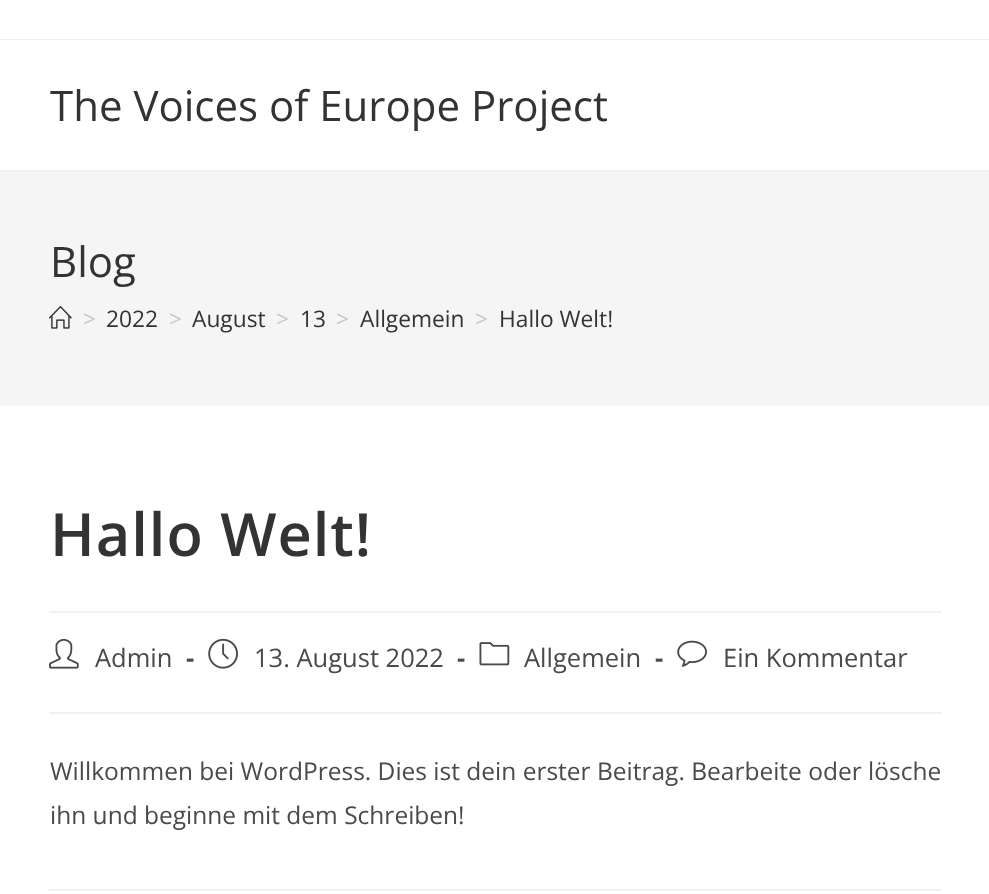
<svg xmlns="http://www.w3.org/2000/svg" width="989" height="894" viewBox="0 0 989 894">
  <style>
    .t1 { font: 42px Open Sans; fill: #333; }
    .t2 { font: 22.75px Open Sans; fill: #c6c6c6; }
    .t3 { font: 22.75px Open Sans; fill: #333; }
    .t4 { font: 600 59.5px Open Sans; letter-spacing: 1px; fill: #333; }
    .t5 { font: 25.5px Open Sans; fill: #4a4a4a; }
    .t6 { font: bold 25.5px Open Sans; fill: #4a4a4a; }
    .t7 { font: 24.5px Open Sans; fill: #4a4a4a; }
  </style>
  <rect width="100%" height="100%" fill="#fff"/>
  <rect x="0" y="39" width="989" height="1" fill="#f1f1f1"/>
  <rect x="0" y="170" width="989" height="2" fill="#f1f1f1"/>
  <text x="50" y="121" class="t1">The Voices of Europe Project</text>
  <rect x="0" y="172" width="989" height="234" fill="#f5f5f5"/>
  <text x="50" y="277" class="t1">Blog</text>
  <image x="49" y="305" width="23" height="24" href="images/1.png"/>
  <text x="83" y="327" class="t2">&gt;</text>
  <text x="106" y="327" class="t3">2022</text>
  <text x="169" y="327" class="t2">&gt;</text>
  <text x="192" y="327" class="t3">August</text>
  <text x="276" y="327" class="t2">&gt;</text>
  <text x="300" y="327" class="t3">13</text>
  <text x="336" y="327" class="t2">&gt;</text>
  <text x="360" y="327" class="t3">Allgemein</text>
  <text x="475" y="327" class="t2">&gt;</text>
  <text x="499" y="327" class="t3">Hallo Welt!</text>
  <rect x="49" y="611" width="893" height="2" fill="#f1f1f1"/>
  <text x="50" y="556" class="t4">Hallo Welt!</text>
  <rect x="49" y="712" width="893" height="2" fill="#f1f1f1"/>
  <image x="49" y="638" width="30" height="31" href="images/2.png"/>
  <text x="95" y="667" class="t5">Admin</text>
  <text x="186" y="667" class="t6">-</text>
  <image x="208" y="638" width="30" height="31" href="images/3.png"/>
  <text x="254" y="667" class="t5">13. August 2022</text>
  <text x="457" y="667" class="t6">-</text>
  <image x="479" y="642" width="31" height="24" href="images/4.png"/>
  <text x="524" y="667" class="t5">Allgemein</text>
  <text x="655" y="667" class="t6">-</text>
  <image x="677" y="640" width="30" height="27" href="images/5.png"/>
  <text x="723" y="667" class="t5">Ein Kommentar</text>
  <text x="50" y="780" class="t7">Willkommen bei WordPress. Dies ist dein erster Beitrag. Bearbeite oder lösche</text>
  <text x="50" y="824" class="t7">ihn und beginne mit dem Schreiben!</text>
  <rect x="49" y="889" width="893" height="2" fill="#f1f1f1"/>
</svg>
